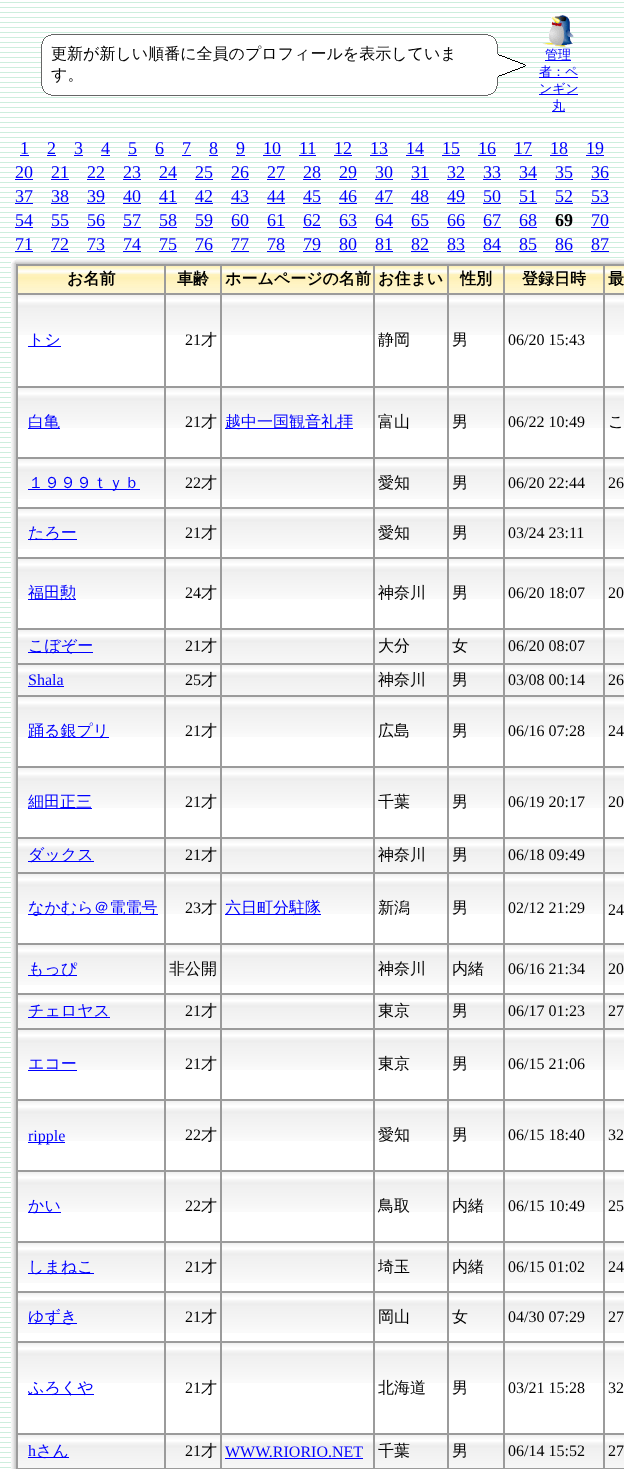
<svg xmlns="http://www.w3.org/2000/svg" width="624" height="1469" viewBox="0 0 624 1469">
  <style>
    .t1 { font: 500 16px WenQuanYi Zen Hei; fill: #000; }
    .t2 { font: 500 13px WenQuanYi Zen Hei; fill: #00f; }
    .t3 { font: 18px Liberation Serif; fill: #00f; }
    .t4 { font: bold 18px Liberation Serif; fill: #000; }
    .t5 { font: bold 16px WenQuanYi Zen Hei; fill: #000; }
    .t6 { font: 500 16px WenQuanYi Zen Hei; fill: #00f; }
    .t7 { font: 16px Liberation Serif; fill: #000; }
    .t8 { font: 16px Liberation Serif; fill: #00f; }
  </style>
  <rect width="100%" height="100%" fill="#fff"/>
  <image x="0" y="2" width="624" height="1466" href="images/1.png"/>
  <image x="42" y="35" width="9" height="9" href="images/2.png"/>
  <rect x="51" y="37" width="437" height="6" fill="#fff"/>
  <rect x="51" y="34" width="437" height="1" fill="#666"/>
  <image x="488" y="35" width="9" height="9" href="images/3.png"/>
  <rect x="42" y="47" width="455" height="36" fill="#fff"/>
  <rect x="41" y="44" width="1" height="42" fill="#666"/>
  <rect x="497" y="44" width="1" height="42" fill="#666"/>
  <rect x="497" y="54" width="1" height="23" fill="#fff"/>
  <text x="51" y="59" class="t1">更新が新しい順番に全員のプロフィールを表示していま</text>
  <text x="51" y="80" class="t1">す。</text>
  <image x="498" y="54" width="28" height="23" href="images/4.png"/>
  <image x="42" y="86" width="9" height="9" href="images/5.png"/>
  <rect x="51" y="87" width="437" height="6" fill="#fff"/>
  <rect x="51" y="95" width="437" height="1" fill="#666"/>
  <image x="488" y="86" width="9" height="9" href="images/6.png"/>
  <image x="542" y="15" width="32" height="32" href="images/7.png"/>
  <rect x="545" y="60" width="26" height="1" fill="#00f"/>
  <text x="545" y="59" class="t2">管理</text>
  <rect x="539" y="77" width="39" height="1" fill="#00f"/>
  <text x="539" y="76" class="t2">者：ペ</text>
  <rect x="539" y="94" width="39" height="1" fill="#00f"/>
  <text x="539" y="93" class="t2">ンギン</text>
  <rect x="552" y="111" width="13" height="1" fill="#00f"/>
  <text x="552" y="110" class="t2">丸</text>
  <text x="20" y="154" class="t3">1</text>
  <rect x="20" y="155" width="9" height="1" fill="#00f"/>
  <text x="47" y="154" class="t3">2</text>
  <rect x="47" y="155" width="9" height="1" fill="#00f"/>
  <text x="74" y="154" class="t3">3</text>
  <rect x="74" y="155" width="9" height="1" fill="#00f"/>
  <text x="101" y="154" class="t3">4</text>
  <rect x="101" y="155" width="9" height="1" fill="#00f"/>
  <text x="128" y="154" class="t3">5</text>
  <rect x="128" y="155" width="9" height="1" fill="#00f"/>
  <text x="155" y="154" class="t3">6</text>
  <rect x="155" y="155" width="9" height="1" fill="#00f"/>
  <text x="182" y="154" class="t3">7</text>
  <rect x="182" y="155" width="9" height="1" fill="#00f"/>
  <text x="209" y="154" class="t3">8</text>
  <rect x="209" y="155" width="9" height="1" fill="#00f"/>
  <text x="236" y="154" class="t3">9</text>
  <rect x="236" y="155" width="9" height="1" fill="#00f"/>
  <text x="263" y="154" class="t3">10</text>
  <rect x="263" y="155" width="18" height="1" fill="#00f"/>
  <text x="299" y="154" class="t3">11</text>
  <rect x="299" y="155" width="17" height="1" fill="#00f"/>
  <text x="334" y="154" class="t3">12</text>
  <rect x="334" y="155" width="18" height="1" fill="#00f"/>
  <text x="370" y="154" class="t3">13</text>
  <rect x="370" y="155" width="18" height="1" fill="#00f"/>
  <text x="406" y="154" class="t3">14</text>
  <rect x="406" y="155" width="18" height="1" fill="#00f"/>
  <text x="442" y="154" class="t3">15</text>
  <rect x="442" y="155" width="18" height="1" fill="#00f"/>
  <text x="478" y="154" class="t3">16</text>
  <rect x="478" y="155" width="18" height="1" fill="#00f"/>
  <text x="514" y="154" class="t3">17</text>
  <rect x="514" y="155" width="18" height="1" fill="#00f"/>
  <text x="550" y="154" class="t3">18</text>
  <rect x="550" y="155" width="18" height="1" fill="#00f"/>
  <text x="586" y="154" class="t3">19</text>
  <rect x="586" y="155" width="18" height="1" fill="#00f"/>
  <text x="15" y="178" class="t3">20</text>
  <rect x="15" y="179" width="18" height="1" fill="#00f"/>
  <text x="51" y="178" class="t3">21</text>
  <rect x="51" y="179" width="18" height="1" fill="#00f"/>
  <text x="87" y="178" class="t3">22</text>
  <rect x="87" y="179" width="18" height="1" fill="#00f"/>
  <text x="123" y="178" class="t3">23</text>
  <rect x="123" y="179" width="18" height="1" fill="#00f"/>
  <text x="159" y="178" class="t3">24</text>
  <rect x="159" y="179" width="18" height="1" fill="#00f"/>
  <text x="195" y="178" class="t3">25</text>
  <rect x="195" y="179" width="18" height="1" fill="#00f"/>
  <text x="231" y="178" class="t3">26</text>
  <rect x="231" y="179" width="18" height="1" fill="#00f"/>
  <text x="267" y="178" class="t3">27</text>
  <rect x="267" y="179" width="18" height="1" fill="#00f"/>
  <text x="303" y="178" class="t3">28</text>
  <rect x="303" y="179" width="18" height="1" fill="#00f"/>
  <text x="339" y="178" class="t3">29</text>
  <rect x="339" y="179" width="18" height="1" fill="#00f"/>
  <text x="375" y="178" class="t3">30</text>
  <rect x="375" y="179" width="18" height="1" fill="#00f"/>
  <text x="411" y="178" class="t3">31</text>
  <rect x="411" y="179" width="18" height="1" fill="#00f"/>
  <text x="447" y="178" class="t3">32</text>
  <rect x="447" y="179" width="18" height="1" fill="#00f"/>
  <text x="483" y="178" class="t3">33</text>
  <rect x="483" y="179" width="18" height="1" fill="#00f"/>
  <text x="519" y="178" class="t3">34</text>
  <rect x="519" y="179" width="18" height="1" fill="#00f"/>
  <text x="555" y="178" class="t3">35</text>
  <rect x="555" y="179" width="18" height="1" fill="#00f"/>
  <text x="591" y="178" class="t3">36</text>
  <rect x="591" y="179" width="18" height="1" fill="#00f"/>
  <text x="15" y="202" class="t3">37</text>
  <rect x="15" y="203" width="18" height="1" fill="#00f"/>
  <text x="51" y="202" class="t3">38</text>
  <rect x="51" y="203" width="18" height="1" fill="#00f"/>
  <text x="87" y="202" class="t3">39</text>
  <rect x="87" y="203" width="18" height="1" fill="#00f"/>
  <text x="123" y="202" class="t3">40</text>
  <rect x="123" y="203" width="18" height="1" fill="#00f"/>
  <text x="159" y="202" class="t3">41</text>
  <rect x="159" y="203" width="18" height="1" fill="#00f"/>
  <text x="195" y="202" class="t3">42</text>
  <rect x="195" y="203" width="18" height="1" fill="#00f"/>
  <text x="231" y="202" class="t3">43</text>
  <rect x="231" y="203" width="18" height="1" fill="#00f"/>
  <text x="267" y="202" class="t3">44</text>
  <rect x="267" y="203" width="18" height="1" fill="#00f"/>
  <text x="303" y="202" class="t3">45</text>
  <rect x="303" y="203" width="18" height="1" fill="#00f"/>
  <text x="339" y="202" class="t3">46</text>
  <rect x="339" y="203" width="18" height="1" fill="#00f"/>
  <text x="375" y="202" class="t3">47</text>
  <rect x="375" y="203" width="18" height="1" fill="#00f"/>
  <text x="411" y="202" class="t3">48</text>
  <rect x="411" y="203" width="18" height="1" fill="#00f"/>
  <text x="447" y="202" class="t3">49</text>
  <rect x="447" y="203" width="18" height="1" fill="#00f"/>
  <text x="483" y="202" class="t3">50</text>
  <rect x="483" y="203" width="18" height="1" fill="#00f"/>
  <text x="519" y="202" class="t3">51</text>
  <rect x="519" y="203" width="18" height="1" fill="#00f"/>
  <text x="555" y="202" class="t3">52</text>
  <rect x="555" y="203" width="18" height="1" fill="#00f"/>
  <text x="591" y="202" class="t3">53</text>
  <rect x="591" y="203" width="18" height="1" fill="#00f"/>
  <text x="15" y="226" class="t3">54</text>
  <rect x="15" y="227" width="18" height="1" fill="#00f"/>
  <text x="51" y="226" class="t3">55</text>
  <rect x="51" y="227" width="18" height="1" fill="#00f"/>
  <text x="87" y="226" class="t3">56</text>
  <rect x="87" y="227" width="18" height="1" fill="#00f"/>
  <text x="123" y="226" class="t3">57</text>
  <rect x="123" y="227" width="18" height="1" fill="#00f"/>
  <text x="159" y="226" class="t3">58</text>
  <rect x="159" y="227" width="18" height="1" fill="#00f"/>
  <text x="195" y="226" class="t3">59</text>
  <rect x="195" y="227" width="18" height="1" fill="#00f"/>
  <text x="231" y="226" class="t3">60</text>
  <rect x="231" y="227" width="18" height="1" fill="#00f"/>
  <text x="267" y="226" class="t3">61</text>
  <rect x="267" y="227" width="18" height="1" fill="#00f"/>
  <text x="303" y="226" class="t3">62</text>
  <rect x="303" y="227" width="18" height="1" fill="#00f"/>
  <text x="339" y="226" class="t3">63</text>
  <rect x="339" y="227" width="18" height="1" fill="#00f"/>
  <text x="375" y="226" class="t3">64</text>
  <rect x="375" y="227" width="18" height="1" fill="#00f"/>
  <text x="411" y="226" class="t3">65</text>
  <rect x="411" y="227" width="18" height="1" fill="#00f"/>
  <text x="447" y="226" class="t3">66</text>
  <rect x="447" y="227" width="18" height="1" fill="#00f"/>
  <text x="483" y="226" class="t3">67</text>
  <rect x="483" y="227" width="18" height="1" fill="#00f"/>
  <text x="519" y="226" class="t3">68</text>
  <rect x="519" y="227" width="18" height="1" fill="#00f"/>
  <text x="555" y="226" class="t4">69</text>
  <text x="591" y="226" class="t3">70</text>
  <rect x="591" y="227" width="18" height="1" fill="#00f"/>
  <text x="15" y="250" class="t3">71</text>
  <rect x="15" y="251" width="18" height="1" fill="#00f"/>
  <text x="51" y="250" class="t3">72</text>
  <rect x="51" y="251" width="18" height="1" fill="#00f"/>
  <text x="87" y="250" class="t3">73</text>
  <rect x="87" y="251" width="18" height="1" fill="#00f"/>
  <text x="123" y="250" class="t3">74</text>
  <rect x="123" y="251" width="18" height="1" fill="#00f"/>
  <text x="159" y="250" class="t3">75</text>
  <rect x="159" y="251" width="18" height="1" fill="#00f"/>
  <text x="195" y="250" class="t3">76</text>
  <rect x="195" y="251" width="18" height="1" fill="#00f"/>
  <text x="231" y="250" class="t3">77</text>
  <rect x="231" y="251" width="18" height="1" fill="#00f"/>
  <text x="267" y="250" class="t3">78</text>
  <rect x="267" y="251" width="18" height="1" fill="#00f"/>
  <text x="303" y="250" class="t3">79</text>
  <rect x="303" y="251" width="18" height="1" fill="#00f"/>
  <text x="339" y="250" class="t3">80</text>
  <rect x="339" y="251" width="18" height="1" fill="#00f"/>
  <text x="375" y="250" class="t3">81</text>
  <rect x="375" y="251" width="18" height="1" fill="#00f"/>
  <text x="411" y="250" class="t3">82</text>
  <rect x="411" y="251" width="18" height="1" fill="#00f"/>
  <text x="447" y="250" class="t3">83</text>
  <rect x="447" y="251" width="18" height="1" fill="#00f"/>
  <text x="483" y="250" class="t3">84</text>
  <rect x="483" y="251" width="18" height="1" fill="#00f"/>
  <text x="519" y="250" class="t3">85</text>
  <rect x="519" y="251" width="18" height="1" fill="#00f"/>
  <text x="555" y="250" class="t3">86</text>
  <rect x="555" y="251" width="18" height="1" fill="#00f"/>
  <text x="591" y="250" class="t3">87</text>
  <rect x="591" y="251" width="18" height="1" fill="#00f"/>
  <image x="11" y="260" width="5" height="4" href="images/8.png"/>
  <image x="16" y="259" width="608" height="5" href="images/9.png"/>
  <image x="11" y="264" width="5" height="1205" href="images/10.png"/>
  <rect x="18" y="337" width="606" height="1096" fill="#fff"/>
  <rect x="16.5" y="264.5" width="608" height="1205" fill="none" stroke="#9b9b9b"/>
  <image x="18" y="266" width="146" height="27" href="images/11.png"/>
  <rect x="17.5" y="265.5" width="147" height="28" fill="none" stroke="#9b9b9b"/>
  <text x="67" y="284" class="t5">お名前</text>
  <image x="166" y="266" width="54" height="27" href="images/12.png"/>
  <rect x="165.5" y="265.5" width="55" height="28" fill="none" stroke="#9b9b9b"/>
  <text x="177" y="284" class="t5">車齢</text>
  <image x="222" y="266" width="151" height="27" href="images/13.png"/>
  <rect x="221.5" y="265.5" width="152" height="28" fill="none" stroke="#9b9b9b"/>
  <text x="225" y="284" class="t5">ホームページの名前</text>
  <image x="375" y="266" width="72" height="27" href="images/14.png"/>
  <rect x="374.5" y="265.5" width="73" height="28" fill="none" stroke="#9b9b9b"/>
  <text x="378" y="284" class="t5">お住まい</text>
  <image x="449" y="266" width="54" height="27" href="images/12.png"/>
  <rect x="448.5" y="265.5" width="55" height="28" fill="none" stroke="#9b9b9b"/>
  <text x="460" y="284" class="t5">性別</text>
  <image x="505" y="266" width="98" height="27" href="images/15.png"/>
  <rect x="504.5" y="265.5" width="99" height="28" fill="none" stroke="#9b9b9b"/>
  <text x="522" y="284" class="t5">登録日時</text>
  <image x="605" y="266" width="19" height="27" href="images/16.png"/>
  <rect x="604.5" y="265.5" width="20" height="28" fill="none" stroke="#9b9b9b"/>
  <text x="608" y="284" class="t5">最</text>
  <image x="18" y="295" width="146" height="40" href="images/17.png"/>
  <rect x="17.5" y="294.5" width="147" height="92" fill="none" stroke="#9b9b9b"/>
  <rect x="28" y="346" width="33" height="1" fill="#00f"/>
  <text x="28" y="345" class="t6">トシ</text>
  <image x="166" y="295" width="54" height="40" href="images/18.png"/>
  <rect x="165.5" y="294.5" width="55" height="92" fill="none" stroke="#9b9b9b"/>
  <text x="185" y="345" class="t7">21</text>
  <text x="201" y="345" class="t1">才</text>
  <image x="222" y="295" width="151" height="40" href="images/19.png"/>
  <rect x="221.5" y="294.5" width="152" height="92" fill="none" stroke="#9b9b9b"/>
  <image x="375" y="295" width="72" height="40" href="images/20.png"/>
  <rect x="374.5" y="294.5" width="73" height="92" fill="none" stroke="#9b9b9b"/>
  <text x="378" y="345" class="t1">静岡</text>
  <image x="449" y="295" width="54" height="40" href="images/18.png"/>
  <rect x="448.5" y="294.5" width="55" height="92" fill="none" stroke="#9b9b9b"/>
  <text x="452" y="345" class="t1">男</text>
  <image x="505" y="295" width="98" height="40" href="images/21.png"/>
  <rect x="504.5" y="294.5" width="99" height="92" fill="none" stroke="#9b9b9b"/>
  <text x="508" y="345" class="t7">06/20 15:43</text>
  <image x="605" y="295" width="19" height="40" href="images/22.png"/>
  <rect x="604.5" y="294.5" width="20" height="92" fill="none" stroke="#9b9b9b"/>
  <image x="18" y="388" width="146" height="40" href="images/17.png"/>
  <rect x="17.5" y="387.5" width="147" height="70" fill="none" stroke="#9b9b9b"/>
  <rect x="28" y="428" width="32" height="1" fill="#00f"/>
  <text x="28" y="427" class="t6">白亀</text>
  <image x="166" y="388" width="54" height="40" href="images/18.png"/>
  <rect x="165.5" y="387.5" width="55" height="70" fill="none" stroke="#9b9b9b"/>
  <text x="185" y="427" class="t7">21</text>
  <text x="201" y="427" class="t1">才</text>
  <image x="222" y="388" width="151" height="40" href="images/19.png"/>
  <rect x="221.5" y="387.5" width="152" height="70" fill="none" stroke="#9b9b9b"/>
  <rect x="225" y="428" width="128" height="1" fill="#00f"/>
  <text x="225" y="427" class="t6">越中一国観音礼拝</text>
  <image x="375" y="388" width="72" height="40" href="images/20.png"/>
  <rect x="374.5" y="387.5" width="73" height="70" fill="none" stroke="#9b9b9b"/>
  <text x="378" y="427" class="t1">富山</text>
  <image x="449" y="388" width="54" height="40" href="images/18.png"/>
  <rect x="448.5" y="387.5" width="55" height="70" fill="none" stroke="#9b9b9b"/>
  <text x="452" y="427" class="t1">男</text>
  <image x="505" y="388" width="98" height="40" href="images/21.png"/>
  <rect x="504.5" y="387.5" width="99" height="70" fill="none" stroke="#9b9b9b"/>
  <text x="508" y="427" class="t7">06/22 10:49</text>
  <image x="605" y="388" width="19" height="40" href="images/22.png"/>
  <rect x="604.5" y="387.5" width="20" height="70" fill="none" stroke="#9b9b9b"/>
  <text x="608" y="427" class="t1">こ</text>
  <image x="18" y="459" width="146" height="40" href="images/17.png"/>
  <rect x="17.5" y="458.5" width="147" height="49" fill="none" stroke="#9b9b9b"/>
  <rect x="28" y="489" width="112" height="1" fill="#00f"/>
  <text x="28" y="488" class="t6">１９９９ｔｙｂ</text>
  <image x="166" y="459" width="54" height="40" href="images/18.png"/>
  <rect x="165.5" y="458.5" width="55" height="49" fill="none" stroke="#9b9b9b"/>
  <text x="185" y="488" class="t7">22</text>
  <text x="201" y="488" class="t1">才</text>
  <image x="222" y="459" width="151" height="40" href="images/19.png"/>
  <rect x="221.5" y="458.5" width="152" height="49" fill="none" stroke="#9b9b9b"/>
  <image x="375" y="459" width="72" height="40" href="images/20.png"/>
  <rect x="374.5" y="458.5" width="73" height="49" fill="none" stroke="#9b9b9b"/>
  <text x="378" y="488" class="t1">愛知</text>
  <image x="449" y="459" width="54" height="40" href="images/18.png"/>
  <rect x="448.5" y="458.5" width="55" height="49" fill="none" stroke="#9b9b9b"/>
  <text x="452" y="488" class="t1">男</text>
  <image x="505" y="459" width="98" height="40" href="images/21.png"/>
  <rect x="504.5" y="458.5" width="99" height="49" fill="none" stroke="#9b9b9b"/>
  <text x="508" y="488" class="t7">06/20 22:44</text>
  <image x="605" y="459" width="19" height="40" href="images/22.png"/>
  <rect x="604.5" y="458.5" width="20" height="49" fill="none" stroke="#9b9b9b"/>
  <text x="608" y="488" class="t7">26</text>
  <image x="18" y="509" width="146" height="40" href="images/17.png"/>
  <rect x="17.5" y="508.5" width="147" height="49" fill="none" stroke="#9b9b9b"/>
  <rect x="28" y="539" width="49" height="1" fill="#00f"/>
  <text x="28" y="538" class="t6">たろー</text>
  <image x="166" y="509" width="54" height="40" href="images/18.png"/>
  <rect x="165.5" y="508.5" width="55" height="49" fill="none" stroke="#9b9b9b"/>
  <text x="185" y="538" class="t7">21</text>
  <text x="201" y="538" class="t1">才</text>
  <image x="222" y="509" width="151" height="40" href="images/19.png"/>
  <rect x="221.5" y="508.5" width="152" height="49" fill="none" stroke="#9b9b9b"/>
  <image x="375" y="509" width="72" height="40" href="images/20.png"/>
  <rect x="374.5" y="508.5" width="73" height="49" fill="none" stroke="#9b9b9b"/>
  <text x="378" y="538" class="t1">愛知</text>
  <image x="449" y="509" width="54" height="40" href="images/18.png"/>
  <rect x="448.5" y="508.5" width="55" height="49" fill="none" stroke="#9b9b9b"/>
  <text x="452" y="538" class="t1">男</text>
  <image x="505" y="509" width="98" height="40" href="images/21.png"/>
  <rect x="504.5" y="508.5" width="99" height="49" fill="none" stroke="#9b9b9b"/>
  <text x="508" y="538" class="t7">03/24 23:11</text>
  <image x="605" y="509" width="19" height="40" href="images/22.png"/>
  <rect x="604.5" y="508.5" width="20" height="49" fill="none" stroke="#9b9b9b"/>
  <image x="18" y="559" width="146" height="40" href="images/17.png"/>
  <rect x="17.5" y="558.5" width="147" height="70" fill="none" stroke="#9b9b9b"/>
  <rect x="28" y="599" width="48" height="1" fill="#00f"/>
  <text x="28" y="598" class="t6">福田勲</text>
  <image x="166" y="559" width="54" height="40" href="images/18.png"/>
  <rect x="165.5" y="558.5" width="55" height="70" fill="none" stroke="#9b9b9b"/>
  <text x="185" y="598" class="t7">24</text>
  <text x="201" y="598" class="t1">才</text>
  <image x="222" y="559" width="151" height="40" href="images/19.png"/>
  <rect x="221.5" y="558.5" width="152" height="70" fill="none" stroke="#9b9b9b"/>
  <image x="375" y="559" width="72" height="40" href="images/20.png"/>
  <rect x="374.5" y="558.5" width="73" height="70" fill="none" stroke="#9b9b9b"/>
  <text x="378" y="598" class="t1">神奈川</text>
  <image x="449" y="559" width="54" height="40" href="images/18.png"/>
  <rect x="448.5" y="558.5" width="55" height="70" fill="none" stroke="#9b9b9b"/>
  <text x="452" y="598" class="t1">男</text>
  <image x="505" y="559" width="98" height="40" href="images/21.png"/>
  <rect x="504.5" y="558.5" width="99" height="70" fill="none" stroke="#9b9b9b"/>
  <text x="508" y="598" class="t7">06/20 18:07</text>
  <image x="605" y="559" width="19" height="40" href="images/22.png"/>
  <rect x="604.5" y="558.5" width="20" height="70" fill="none" stroke="#9b9b9b"/>
  <text x="608" y="598" class="t7">20</text>
  <image x="18" y="630" width="146" height="33" href="images/23.png"/>
  <rect x="17.5" y="629.5" width="147" height="34" fill="none" stroke="#9b9b9b"/>
  <rect x="28" y="652" width="65" height="1" fill="#00f"/>
  <text x="28" y="651" class="t6">こぼぞー</text>
  <image x="166" y="630" width="54" height="33" href="images/24.png"/>
  <rect x="165.5" y="629.5" width="55" height="34" fill="none" stroke="#9b9b9b"/>
  <text x="185" y="651" class="t7">21</text>
  <text x="201" y="651" class="t1">才</text>
  <image x="222" y="630" width="151" height="33" href="images/25.png"/>
  <rect x="221.5" y="629.5" width="152" height="34" fill="none" stroke="#9b9b9b"/>
  <image x="375" y="630" width="72" height="33" href="images/26.png"/>
  <rect x="374.5" y="629.5" width="73" height="34" fill="none" stroke="#9b9b9b"/>
  <text x="378" y="651" class="t1">大分</text>
  <image x="449" y="630" width="54" height="33" href="images/24.png"/>
  <rect x="448.5" y="629.5" width="55" height="34" fill="none" stroke="#9b9b9b"/>
  <text x="452" y="651" class="t1">女</text>
  <image x="505" y="630" width="98" height="33" href="images/27.png"/>
  <rect x="504.5" y="629.5" width="99" height="34" fill="none" stroke="#9b9b9b"/>
  <text x="508" y="651" class="t7">06/20 08:07</text>
  <image x="605" y="630" width="19" height="33" href="images/28.png"/>
  <rect x="604.5" y="629.5" width="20" height="34" fill="none" stroke="#9b9b9b"/>
  <image x="18" y="665" width="146" height="30" href="images/29.png"/>
  <rect x="17.5" y="664.5" width="147" height="31" fill="none" stroke="#9b9b9b"/>
  <text x="28" y="685" class="t8">Shala</text>
  <rect x="28" y="686" width="36" height="1" fill="#00f"/>
  <image x="166" y="665" width="54" height="30" href="images/30.png"/>
  <rect x="165.5" y="664.5" width="55" height="31" fill="none" stroke="#9b9b9b"/>
  <text x="185" y="685" class="t7">25</text>
  <text x="201" y="685" class="t1">才</text>
  <image x="222" y="665" width="151" height="30" href="images/31.png"/>
  <rect x="221.5" y="664.5" width="152" height="31" fill="none" stroke="#9b9b9b"/>
  <image x="375" y="665" width="72" height="30" href="images/32.png"/>
  <rect x="374.5" y="664.5" width="73" height="31" fill="none" stroke="#9b9b9b"/>
  <text x="378" y="685" class="t1">神奈川</text>
  <image x="449" y="665" width="54" height="30" href="images/30.png"/>
  <rect x="448.5" y="664.5" width="55" height="31" fill="none" stroke="#9b9b9b"/>
  <text x="452" y="685" class="t1">男</text>
  <image x="505" y="665" width="98" height="30" href="images/33.png"/>
  <rect x="504.5" y="664.5" width="99" height="31" fill="none" stroke="#9b9b9b"/>
  <text x="508" y="685" class="t7">03/08 00:14</text>
  <image x="605" y="665" width="19" height="30" href="images/34.png"/>
  <rect x="604.5" y="664.5" width="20" height="31" fill="none" stroke="#9b9b9b"/>
  <text x="608" y="685" class="t7">26</text>
  <image x="18" y="697" width="146" height="40" href="images/17.png"/>
  <rect x="17.5" y="696.5" width="147" height="70" fill="none" stroke="#9b9b9b"/>
  <rect x="28" y="737" width="81" height="1" fill="#00f"/>
  <text x="28" y="736" class="t6">踊る銀プリ</text>
  <image x="166" y="697" width="54" height="40" href="images/18.png"/>
  <rect x="165.5" y="696.5" width="55" height="70" fill="none" stroke="#9b9b9b"/>
  <text x="185" y="736" class="t7">21</text>
  <text x="201" y="736" class="t1">才</text>
  <image x="222" y="697" width="151" height="40" href="images/19.png"/>
  <rect x="221.5" y="696.5" width="152" height="70" fill="none" stroke="#9b9b9b"/>
  <image x="375" y="697" width="72" height="40" href="images/20.png"/>
  <rect x="374.5" y="696.5" width="73" height="70" fill="none" stroke="#9b9b9b"/>
  <text x="378" y="736" class="t1">広島</text>
  <image x="449" y="697" width="54" height="40" href="images/18.png"/>
  <rect x="448.5" y="696.5" width="55" height="70" fill="none" stroke="#9b9b9b"/>
  <text x="452" y="736" class="t1">男</text>
  <image x="505" y="697" width="98" height="40" href="images/21.png"/>
  <rect x="504.5" y="696.5" width="99" height="70" fill="none" stroke="#9b9b9b"/>
  <text x="508" y="736" class="t7">06/16 07:28</text>
  <image x="605" y="697" width="19" height="40" href="images/22.png"/>
  <rect x="604.5" y="696.5" width="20" height="70" fill="none" stroke="#9b9b9b"/>
  <text x="608" y="736" class="t7">24</text>
  <image x="18" y="768" width="146" height="40" href="images/17.png"/>
  <rect x="17.5" y="767.5" width="147" height="70" fill="none" stroke="#9b9b9b"/>
  <rect x="28" y="808" width="64" height="1" fill="#00f"/>
  <text x="28" y="807" class="t6">細田正三</text>
  <image x="166" y="768" width="54" height="40" href="images/18.png"/>
  <rect x="165.5" y="767.5" width="55" height="70" fill="none" stroke="#9b9b9b"/>
  <text x="185" y="807" class="t7">21</text>
  <text x="201" y="807" class="t1">才</text>
  <image x="222" y="768" width="151" height="40" href="images/19.png"/>
  <rect x="221.5" y="767.5" width="152" height="70" fill="none" stroke="#9b9b9b"/>
  <image x="375" y="768" width="72" height="40" href="images/20.png"/>
  <rect x="374.5" y="767.5" width="73" height="70" fill="none" stroke="#9b9b9b"/>
  <text x="378" y="807" class="t1">千葉</text>
  <image x="449" y="768" width="54" height="40" href="images/18.png"/>
  <rect x="448.5" y="767.5" width="55" height="70" fill="none" stroke="#9b9b9b"/>
  <text x="452" y="807" class="t1">男</text>
  <image x="505" y="768" width="98" height="40" href="images/21.png"/>
  <rect x="504.5" y="767.5" width="99" height="70" fill="none" stroke="#9b9b9b"/>
  <text x="508" y="807" class="t7">06/19 20:17</text>
  <image x="605" y="768" width="19" height="40" href="images/22.png"/>
  <rect x="604.5" y="767.5" width="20" height="70" fill="none" stroke="#9b9b9b"/>
  <text x="608" y="807" class="t7">20</text>
  <image x="18" y="839" width="146" height="33" href="images/23.png"/>
  <rect x="17.5" y="838.5" width="147" height="34" fill="none" stroke="#9b9b9b"/>
  <rect x="28" y="861" width="66" height="1" fill="#00f"/>
  <text x="28" y="860" class="t6">ダックス</text>
  <image x="166" y="839" width="54" height="33" href="images/24.png"/>
  <rect x="165.5" y="838.5" width="55" height="34" fill="none" stroke="#9b9b9b"/>
  <text x="185" y="860" class="t7">21</text>
  <text x="201" y="860" class="t1">才</text>
  <image x="222" y="839" width="151" height="33" href="images/25.png"/>
  <rect x="221.5" y="838.5" width="152" height="34" fill="none" stroke="#9b9b9b"/>
  <image x="375" y="839" width="72" height="33" href="images/26.png"/>
  <rect x="374.5" y="838.5" width="73" height="34" fill="none" stroke="#9b9b9b"/>
  <text x="378" y="860" class="t1">神奈川</text>
  <image x="449" y="839" width="54" height="33" href="images/24.png"/>
  <rect x="448.5" y="838.5" width="55" height="34" fill="none" stroke="#9b9b9b"/>
  <text x="452" y="860" class="t1">男</text>
  <image x="505" y="839" width="98" height="33" href="images/27.png"/>
  <rect x="504.5" y="838.5" width="99" height="34" fill="none" stroke="#9b9b9b"/>
  <text x="508" y="860" class="t7">06/18 09:49</text>
  <image x="605" y="839" width="19" height="33" href="images/28.png"/>
  <rect x="604.5" y="838.5" width="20" height="34" fill="none" stroke="#9b9b9b"/>
  <image x="18" y="874" width="146" height="40" href="images/17.png"/>
  <rect x="17.5" y="873.5" width="147" height="70" fill="none" stroke="#9b9b9b"/>
  <rect x="28" y="914" width="130" height="1" fill="#00f"/>
  <text x="28" y="913" class="t6">なかむら＠電電号</text>
  <image x="166" y="874" width="54" height="40" href="images/18.png"/>
  <rect x="165.5" y="873.5" width="55" height="70" fill="none" stroke="#9b9b9b"/>
  <text x="185" y="913" class="t7">23</text>
  <text x="201" y="913" class="t1">才</text>
  <image x="222" y="874" width="151" height="40" href="images/19.png"/>
  <rect x="221.5" y="873.5" width="152" height="70" fill="none" stroke="#9b9b9b"/>
  <rect x="225" y="914" width="96" height="1" fill="#00f"/>
  <text x="225" y="913" class="t6">六日町分駐隊</text>
  <image x="375" y="874" width="72" height="40" href="images/20.png"/>
  <rect x="374.5" y="873.5" width="73" height="70" fill="none" stroke="#9b9b9b"/>
  <text x="378" y="913" class="t1">新潟</text>
  <image x="449" y="874" width="54" height="40" href="images/18.png"/>
  <rect x="448.5" y="873.5" width="55" height="70" fill="none" stroke="#9b9b9b"/>
  <text x="452" y="913" class="t1">男</text>
  <image x="505" y="874" width="98" height="40" href="images/21.png"/>
  <rect x="504.5" y="873.5" width="99" height="70" fill="none" stroke="#9b9b9b"/>
  <text x="508" y="913" class="t7">02/12 21:29</text>
  <image x="605" y="874" width="19" height="40" href="images/22.png"/>
  <rect x="604.5" y="873.5" width="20" height="70" fill="none" stroke="#9b9b9b"/>
  <text x="608" y="915" class="t7">24</text>
  <image x="18" y="945" width="146" height="40" href="images/17.png"/>
  <rect x="17.5" y="944.5" width="147" height="49" fill="none" stroke="#9b9b9b"/>
  <rect x="28" y="975" width="49" height="1" fill="#00f"/>
  <text x="28" y="974" class="t6">もっぴ</text>
  <image x="166" y="945" width="54" height="40" href="images/18.png"/>
  <rect x="165.5" y="944.5" width="55" height="49" fill="none" stroke="#9b9b9b"/>
  <text x="169" y="974" class="t1">非公開</text>
  <image x="222" y="945" width="151" height="40" href="images/19.png"/>
  <rect x="221.5" y="944.5" width="152" height="49" fill="none" stroke="#9b9b9b"/>
  <image x="375" y="945" width="72" height="40" href="images/20.png"/>
  <rect x="374.5" y="944.5" width="73" height="49" fill="none" stroke="#9b9b9b"/>
  <text x="378" y="974" class="t1">神奈川</text>
  <image x="449" y="945" width="54" height="40" href="images/18.png"/>
  <rect x="448.5" y="944.5" width="55" height="49" fill="none" stroke="#9b9b9b"/>
  <text x="452" y="974" class="t1">内緒</text>
  <image x="505" y="945" width="98" height="40" href="images/21.png"/>
  <rect x="504.5" y="944.5" width="99" height="49" fill="none" stroke="#9b9b9b"/>
  <text x="508" y="974" class="t7">06/16 21:34</text>
  <image x="605" y="945" width="19" height="40" href="images/22.png"/>
  <rect x="604.5" y="944.5" width="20" height="49" fill="none" stroke="#9b9b9b"/>
  <text x="608" y="974" class="t7">20</text>
  <image x="18" y="995" width="146" height="33" href="images/23.png"/>
  <rect x="17.5" y="994.5" width="147" height="34" fill="none" stroke="#9b9b9b"/>
  <rect x="28" y="1017" width="82" height="1" fill="#00f"/>
  <text x="28" y="1016" class="t6">チェロヤス</text>
  <image x="166" y="995" width="54" height="33" href="images/24.png"/>
  <rect x="165.5" y="994.5" width="55" height="34" fill="none" stroke="#9b9b9b"/>
  <text x="185" y="1016" class="t7">21</text>
  <text x="201" y="1016" class="t1">才</text>
  <image x="222" y="995" width="151" height="33" href="images/25.png"/>
  <rect x="221.5" y="994.5" width="152" height="34" fill="none" stroke="#9b9b9b"/>
  <image x="375" y="995" width="72" height="33" href="images/26.png"/>
  <rect x="374.5" y="994.5" width="73" height="34" fill="none" stroke="#9b9b9b"/>
  <text x="378" y="1016" class="t1">東京</text>
  <image x="449" y="995" width="54" height="33" href="images/24.png"/>
  <rect x="448.5" y="994.5" width="55" height="34" fill="none" stroke="#9b9b9b"/>
  <text x="452" y="1016" class="t1">男</text>
  <image x="505" y="995" width="98" height="33" href="images/27.png"/>
  <rect x="504.5" y="994.5" width="99" height="34" fill="none" stroke="#9b9b9b"/>
  <text x="508" y="1016" class="t7">06/17 01:23</text>
  <image x="605" y="995" width="19" height="33" href="images/28.png"/>
  <rect x="604.5" y="994.5" width="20" height="34" fill="none" stroke="#9b9b9b"/>
  <text x="608" y="1016" class="t7">27</text>
  <image x="18" y="1030" width="146" height="40" href="images/17.png"/>
  <rect x="17.5" y="1029.5" width="147" height="70" fill="none" stroke="#9b9b9b"/>
  <text x="28" y="1069" class="t6">エコー</text>
  <rect x="28" y="1070" width="49" height="1" fill="#00f"/>
  <image x="166" y="1030" width="54" height="40" href="images/18.png"/>
  <rect x="165.5" y="1029.5" width="55" height="70" fill="none" stroke="#9b9b9b"/>
  <text x="185" y="1069" class="t7">21</text>
  <text x="201" y="1069" class="t1">才</text>
  <image x="222" y="1030" width="151" height="40" href="images/19.png"/>
  <rect x="221.5" y="1029.5" width="152" height="70" fill="none" stroke="#9b9b9b"/>
  <image x="375" y="1030" width="72" height="40" href="images/20.png"/>
  <rect x="374.5" y="1029.5" width="73" height="70" fill="none" stroke="#9b9b9b"/>
  <text x="378" y="1069" class="t1">東京</text>
  <image x="449" y="1030" width="54" height="40" href="images/18.png"/>
  <rect x="448.5" y="1029.5" width="55" height="70" fill="none" stroke="#9b9b9b"/>
  <text x="452" y="1069" class="t1">男</text>
  <image x="505" y="1030" width="98" height="40" href="images/21.png"/>
  <rect x="504.5" y="1029.5" width="99" height="70" fill="none" stroke="#9b9b9b"/>
  <text x="508" y="1069" class="t7">06/15 21:06</text>
  <image x="605" y="1030" width="19" height="40" href="images/22.png"/>
  <rect x="604.5" y="1029.5" width="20" height="70" fill="none" stroke="#9b9b9b"/>
  <image x="18" y="1101" width="146" height="40" href="images/17.png"/>
  <rect x="17.5" y="1100.5" width="147" height="70" fill="none" stroke="#9b9b9b"/>
  <rect x="28" y="1142" width="37" height="1" fill="#00f"/>
  <text x="28" y="1141" class="t8">ripple</text>
  <image x="166" y="1101" width="54" height="40" href="images/18.png"/>
  <rect x="165.5" y="1100.5" width="55" height="70" fill="none" stroke="#9b9b9b"/>
  <text x="185" y="1140" class="t7">22</text>
  <text x="201" y="1140" class="t1">才</text>
  <image x="222" y="1101" width="151" height="40" href="images/19.png"/>
  <rect x="221.5" y="1100.5" width="152" height="70" fill="none" stroke="#9b9b9b"/>
  <image x="375" y="1101" width="72" height="40" href="images/20.png"/>
  <rect x="374.5" y="1100.5" width="73" height="70" fill="none" stroke="#9b9b9b"/>
  <text x="378" y="1140" class="t1">愛知</text>
  <image x="449" y="1101" width="54" height="40" href="images/18.png"/>
  <rect x="448.5" y="1100.5" width="55" height="70" fill="none" stroke="#9b9b9b"/>
  <text x="452" y="1140" class="t1">男</text>
  <image x="505" y="1101" width="98" height="40" href="images/21.png"/>
  <rect x="504.5" y="1100.5" width="99" height="70" fill="none" stroke="#9b9b9b"/>
  <text x="508" y="1140" class="t7">06/15 18:40</text>
  <image x="605" y="1101" width="19" height="40" href="images/22.png"/>
  <rect x="604.5" y="1100.5" width="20" height="70" fill="none" stroke="#9b9b9b"/>
  <text x="608" y="1140" class="t7">32</text>
  <image x="18" y="1172" width="146" height="40" href="images/17.png"/>
  <rect x="17.5" y="1171.5" width="147" height="70" fill="none" stroke="#9b9b9b"/>
  <rect x="28" y="1212" width="33" height="1" fill="#00f"/>
  <text x="28" y="1211" class="t6">かい</text>
  <image x="166" y="1172" width="54" height="40" href="images/18.png"/>
  <rect x="165.5" y="1171.5" width="55" height="70" fill="none" stroke="#9b9b9b"/>
  <text x="185" y="1211" class="t7">22</text>
  <text x="201" y="1211" class="t1">才</text>
  <image x="222" y="1172" width="151" height="40" href="images/19.png"/>
  <rect x="221.5" y="1171.5" width="152" height="70" fill="none" stroke="#9b9b9b"/>
  <image x="375" y="1172" width="72" height="40" href="images/20.png"/>
  <rect x="374.5" y="1171.5" width="73" height="70" fill="none" stroke="#9b9b9b"/>
  <text x="378" y="1211" class="t1">鳥取</text>
  <image x="449" y="1172" width="54" height="40" href="images/18.png"/>
  <rect x="448.5" y="1171.5" width="55" height="70" fill="none" stroke="#9b9b9b"/>
  <text x="452" y="1211" class="t1">内緒</text>
  <image x="505" y="1172" width="98" height="40" href="images/21.png"/>
  <rect x="504.5" y="1171.5" width="99" height="70" fill="none" stroke="#9b9b9b"/>
  <text x="508" y="1211" class="t7">06/15 10:49</text>
  <image x="605" y="1172" width="19" height="40" href="images/22.png"/>
  <rect x="604.5" y="1171.5" width="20" height="70" fill="none" stroke="#9b9b9b"/>
  <text x="608" y="1211" class="t7">25</text>
  <image x="18" y="1243" width="146" height="40" href="images/17.png"/>
  <rect x="17.5" y="1242.5" width="147" height="49" fill="none" stroke="#9b9b9b"/>
  <rect x="28" y="1273" width="66" height="1" fill="#00f"/>
  <text x="28" y="1272" class="t6">しまねこ</text>
  <image x="166" y="1243" width="54" height="40" href="images/18.png"/>
  <rect x="165.5" y="1242.5" width="55" height="49" fill="none" stroke="#9b9b9b"/>
  <text x="185" y="1272" class="t7">21</text>
  <text x="201" y="1272" class="t1">才</text>
  <image x="222" y="1243" width="151" height="40" href="images/19.png"/>
  <rect x="221.5" y="1242.5" width="152" height="49" fill="none" stroke="#9b9b9b"/>
  <image x="375" y="1243" width="72" height="40" href="images/20.png"/>
  <rect x="374.5" y="1242.5" width="73" height="49" fill="none" stroke="#9b9b9b"/>
  <text x="378" y="1272" class="t1">埼玉</text>
  <image x="449" y="1243" width="54" height="40" href="images/18.png"/>
  <rect x="448.5" y="1242.5" width="55" height="49" fill="none" stroke="#9b9b9b"/>
  <text x="452" y="1272" class="t1">内緒</text>
  <image x="505" y="1243" width="98" height="40" href="images/21.png"/>
  <rect x="504.5" y="1242.5" width="99" height="49" fill="none" stroke="#9b9b9b"/>
  <text x="508" y="1272" class="t7">06/15 01:02</text>
  <image x="605" y="1243" width="19" height="40" href="images/22.png"/>
  <rect x="604.5" y="1242.5" width="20" height="49" fill="none" stroke="#9b9b9b"/>
  <text x="608" y="1272" class="t7">24</text>
  <image x="18" y="1293" width="146" height="40" href="images/17.png"/>
  <rect x="17.5" y="1292.5" width="147" height="49" fill="none" stroke="#9b9b9b"/>
  <rect x="28" y="1323" width="49" height="1" fill="#00f"/>
  <text x="28" y="1322" class="t6">ゆずき</text>
  <image x="166" y="1293" width="54" height="40" href="images/18.png"/>
  <rect x="165.5" y="1292.5" width="55" height="49" fill="none" stroke="#9b9b9b"/>
  <text x="185" y="1322" class="t7">21</text>
  <text x="201" y="1322" class="t1">才</text>
  <image x="222" y="1293" width="151" height="40" href="images/19.png"/>
  <rect x="221.5" y="1292.5" width="152" height="49" fill="none" stroke="#9b9b9b"/>
  <image x="375" y="1293" width="72" height="40" href="images/20.png"/>
  <rect x="374.5" y="1292.5" width="73" height="49" fill="none" stroke="#9b9b9b"/>
  <text x="378" y="1322" class="t1">岡山</text>
  <image x="449" y="1293" width="54" height="40" href="images/18.png"/>
  <rect x="448.5" y="1292.5" width="55" height="49" fill="none" stroke="#9b9b9b"/>
  <text x="452" y="1322" class="t1">女</text>
  <image x="505" y="1293" width="98" height="40" href="images/21.png"/>
  <rect x="504.5" y="1292.5" width="99" height="49" fill="none" stroke="#9b9b9b"/>
  <text x="508" y="1322" class="t7">04/30 07:29</text>
  <image x="605" y="1293" width="19" height="40" href="images/22.png"/>
  <rect x="604.5" y="1292.5" width="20" height="49" fill="none" stroke="#9b9b9b"/>
  <text x="608" y="1322" class="t7">27</text>
  <image x="18" y="1343" width="146" height="40" href="images/17.png"/>
  <rect x="17.5" y="1342.5" width="147" height="91" fill="none" stroke="#9b9b9b"/>
  <rect x="28" y="1394" width="66" height="1" fill="#00f"/>
  <text x="28" y="1393" class="t6">ふろくや</text>
  <image x="166" y="1343" width="54" height="40" href="images/18.png"/>
  <rect x="165.5" y="1342.5" width="55" height="91" fill="none" stroke="#9b9b9b"/>
  <text x="185" y="1393" class="t7">21</text>
  <text x="201" y="1393" class="t1">才</text>
  <image x="222" y="1343" width="151" height="40" href="images/19.png"/>
  <rect x="221.5" y="1342.5" width="152" height="91" fill="none" stroke="#9b9b9b"/>
  <image x="375" y="1343" width="72" height="40" href="images/20.png"/>
  <rect x="374.5" y="1342.5" width="73" height="91" fill="none" stroke="#9b9b9b"/>
  <text x="378" y="1393" class="t1">北海道</text>
  <image x="449" y="1343" width="54" height="40" href="images/18.png"/>
  <rect x="448.5" y="1342.5" width="55" height="91" fill="none" stroke="#9b9b9b"/>
  <text x="452" y="1393" class="t1">男</text>
  <image x="505" y="1343" width="98" height="40" href="images/21.png"/>
  <rect x="504.5" y="1342.5" width="99" height="91" fill="none" stroke="#9b9b9b"/>
  <text x="508" y="1393" class="t7">03/21 15:28</text>
  <image x="605" y="1343" width="19" height="40" href="images/22.png"/>
  <rect x="604.5" y="1342.5" width="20" height="91" fill="none" stroke="#9b9b9b"/>
  <text x="608" y="1393" class="t7">32</text>
  <image x="18" y="1435" width="146" height="33" href="images/23.png"/>
  <rect x="17.5" y="1434.5" width="147" height="34" fill="none" stroke="#9b9b9b"/>
  <text x="28" y="1456" class="t8">h</text>
  <rect x="28" y="1457" width="41" height="1" fill="#00f"/>
  <text x="36" y="1456" class="t6">さん</text>
  <image x="166" y="1435" width="54" height="33" href="images/24.png"/>
  <rect x="165.5" y="1434.5" width="55" height="34" fill="none" stroke="#9b9b9b"/>
  <text x="185" y="1456" class="t7">21</text>
  <text x="201" y="1456" class="t1">才</text>
  <image x="222" y="1435" width="151" height="33" href="images/25.png"/>
  <rect x="221.5" y="1434.5" width="152" height="34" fill="none" stroke="#9b9b9b"/>
  <text x="225" y="1457" class="t8">WWW.RIORIO.NET</text>
  <rect x="225" y="1458" width="138" height="1" fill="#00f"/>
  <image x="375" y="1435" width="72" height="33" href="images/26.png"/>
  <rect x="374.5" y="1434.5" width="73" height="34" fill="none" stroke="#9b9b9b"/>
  <text x="378" y="1456" class="t1">千葉</text>
  <image x="449" y="1435" width="54" height="33" href="images/24.png"/>
  <rect x="448.5" y="1434.5" width="55" height="34" fill="none" stroke="#9b9b9b"/>
  <text x="452" y="1456" class="t1">男</text>
  <image x="505" y="1435" width="98" height="33" href="images/27.png"/>
  <rect x="504.5" y="1434.5" width="99" height="34" fill="none" stroke="#9b9b9b"/>
  <text x="508" y="1456" class="t7">06/14 15:52</text>
  <image x="605" y="1435" width="19" height="33" href="images/28.png"/>
  <rect x="604.5" y="1434.5" width="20" height="34" fill="none" stroke="#9b9b9b"/>
  <text x="608" y="1456" class="t7">27</text>
</svg>
